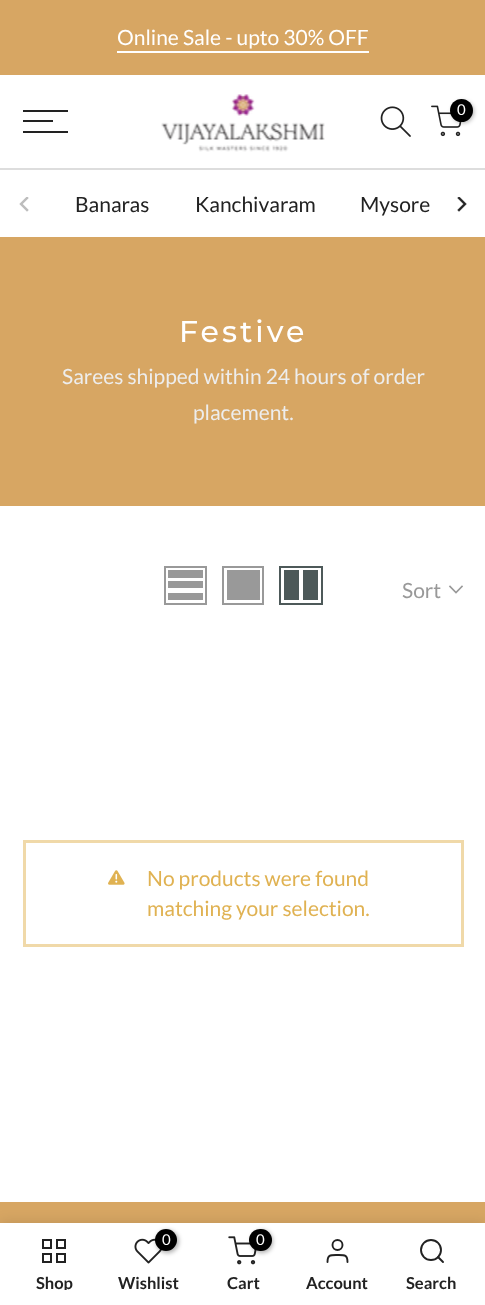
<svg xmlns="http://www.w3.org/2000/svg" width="485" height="1305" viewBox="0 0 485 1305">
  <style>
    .t1 { font: 21px Lato; fill: #fff; }
    .t2 { font: 15px Lato; fill: #fff; }
    .t3 { font: 21px Lato; fill: #222; }
    .t4 { font: 500 30px Montserrat; letter-spacing: 3px; fill: #fff; }
    .t5 { font: 21px Lato; fill: #ededed; }
    .t6 { font: 21px Lato; fill: #999; }
    .t7 { font: 21px Lato; fill: #e0b252; }
    .t8 { font: bold 16.5px Lato; fill: #222; }
  </style>
  <defs>
    <clipPath id="clip1"><rect x="23" y="1274" width="64" height="16"/></clipPath>
  </defs>
  <rect width="100%" height="100%" fill="#fff"/>
  <rect x="0" y="0" width="485" height="75" fill="#d7a663"/>
  <text x="117" y="45" class="t1">Online Sale - upto 30% OFF</text>
  <rect x="117" y="51" width="252" height="2" fill="#fff"/>
  <rect x="23" y="110" width="45" height="2" fill="#222"/>
  <rect x="23" y="120" width="30" height="2" fill="#222"/>
  <rect x="23" y="131" width="45" height="2" fill="#222"/>
  <image x="161" y="94" width="164" height="58" href="images/1.png"/>
  <image x="380" y="106" width="31" height="31" href="images/2.png"/>
  <image x="431" y="105" width="31" height="32" href="images/3.png"/>
  <rect x="452" y="101" width="22" height="22" rx="11" fill="#0000004d" filter="blur(2px)"/>
  <circle cx="461.5" cy="110.5" r="11.5" fill="#000"/>
  <text x="457" y="115" class="t2">0</text>
  <rect x="0" y="168" width="485" height="2" fill="#ddd"/>
  <image x="19" y="197" width="10" height="15" href="images/4.png"/>
  <text x="75" y="212" class="t3">Banaras</text>
  <text x="195" y="212" class="t3">Kanchivaram</text>
  <text x="360" y="212" class="t3">Mysore</text>
  <image x="457" y="197" width="10" height="15" href="images/5.png"/>
  <rect x="0" y="237" width="485" height="269" fill="#d7a663"/>
  <text x="179" y="342" class="t4">Festive</text>
  <text x="62" y="384" class="t5">Sarees shipped within 24 hours of order</text>
  <text x="193" y="420" class="t5">placement.</text>
  <rect x="165" y="567" width="41" height="37" fill="none" stroke="#999" stroke-width="2"/>
  <rect x="168" y="593" width="35" height="7" fill="#999"/>
  <rect x="168" y="581" width="35" height="7" fill="#999"/>
  <rect x="168" y="570" width="35" height="8" fill="#999"/>
  <rect x="223" y="567" width="40" height="37" fill="none" stroke="#999" stroke-width="2"/>
  <rect x="227" y="570" width="33" height="30" fill="#999"/>
  <rect x="280" y="567" width="42" height="37" fill="none" stroke="#4d5959" stroke-width="2"/>
  <rect x="303" y="570" width="15" height="30" fill="#4d5959"/>
  <rect x="284" y="570" width="15" height="30" fill="#4d5959"/>
  <text x="402" y="598" class="t6">Sort</text>
  <path d="M462 586.5L456 592.5L450 586.5" fill="none" stroke="#999" stroke-width="1.6" stroke-linecap="square"/>
  <rect x="24.5" y="841.5" width="438" height="104" fill="none" stroke="#f0d9a9" stroke-width="3"/>
  <image x="108" y="870" width="17" height="15" href="images/6.png"/>
  <text x="147" y="886" class="t7">No products were found</text>
  <text x="147" y="916" class="t7">matching your selection.</text>
  <rect x="0" y="1202" width="485" height="21" fill="#d7a663"/>
  <rect x="0" y="1223" width="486" height="82" fill="#0000001f" filter="blur(7px)"/>
  <rect x="0" y="1223" width="485" height="82" fill="#fff"/>
  <rect x="43" y="1240" width="8" height="8" fill="none" stroke="#222" stroke-width="2"/>
  <rect x="57" y="1240" width="8" height="8" fill="none" stroke="#222" stroke-width="2"/>
  <rect x="43" y="1254" width="8" height="8" fill="none" stroke="#222" stroke-width="2"/>
  <rect x="57" y="1254" width="8" height="8" fill="none" stroke="#222" stroke-width="2"/>
  <g clip-path="url(#clip1)">
    <text x="36" y="1289" class="t8">Shop</text>
  </g>
  <image x="134" y="1238" width="28" height="26" href="images/7.png"/>
  <rect x="156" y="1230" width="23" height="23" rx="11.5" fill="#0000004d" filter="blur(2px)"/>
  <circle cx="166" cy="1240" r="11" fill="#000"/>
  <text x="162" y="1245" class="t2">0</text>
  <text x="118" y="1289" class="t8">Wishlist</text>
  <image x="228" y="1236" width="29" height="29" href="images/8.png"/>
  <rect x="251" y="1230" width="22" height="23" rx="11" fill="#0000004d" filter="blur(2px)"/>
  <rect x="249" y="1229" width="23" height="22" rx="11" fill="#000"/>
  <text x="256" y="1245" class="t2">0</text>
  <text x="227" y="1289" class="t8">Cart</text>
  <circle cx="337.5" cy="1245" r="5" fill="none" stroke="#222" stroke-width="1.9"/>
  <path d="M347.5 1262C347.5 1254.5 344.5 1255 337.5 1255C330.5 1255 327.5 1254.5 327.5 1262" fill="none" stroke="#222" stroke-width="1.9" stroke-linecap="round" stroke-linejoin="round"/>
  <text x="306" y="1289" class="t8">Account</text>
  <circle cx="431" cy="1250" r="10" fill="none" stroke="#222" stroke-width="1.9"/>
  <path d="M443 1262L438 1257" fill="none" stroke="#222" stroke-width="1.9" stroke-linecap="round" stroke-linejoin="round"/>
  <text x="406" y="1289" class="t8">Search</text>
</svg>
